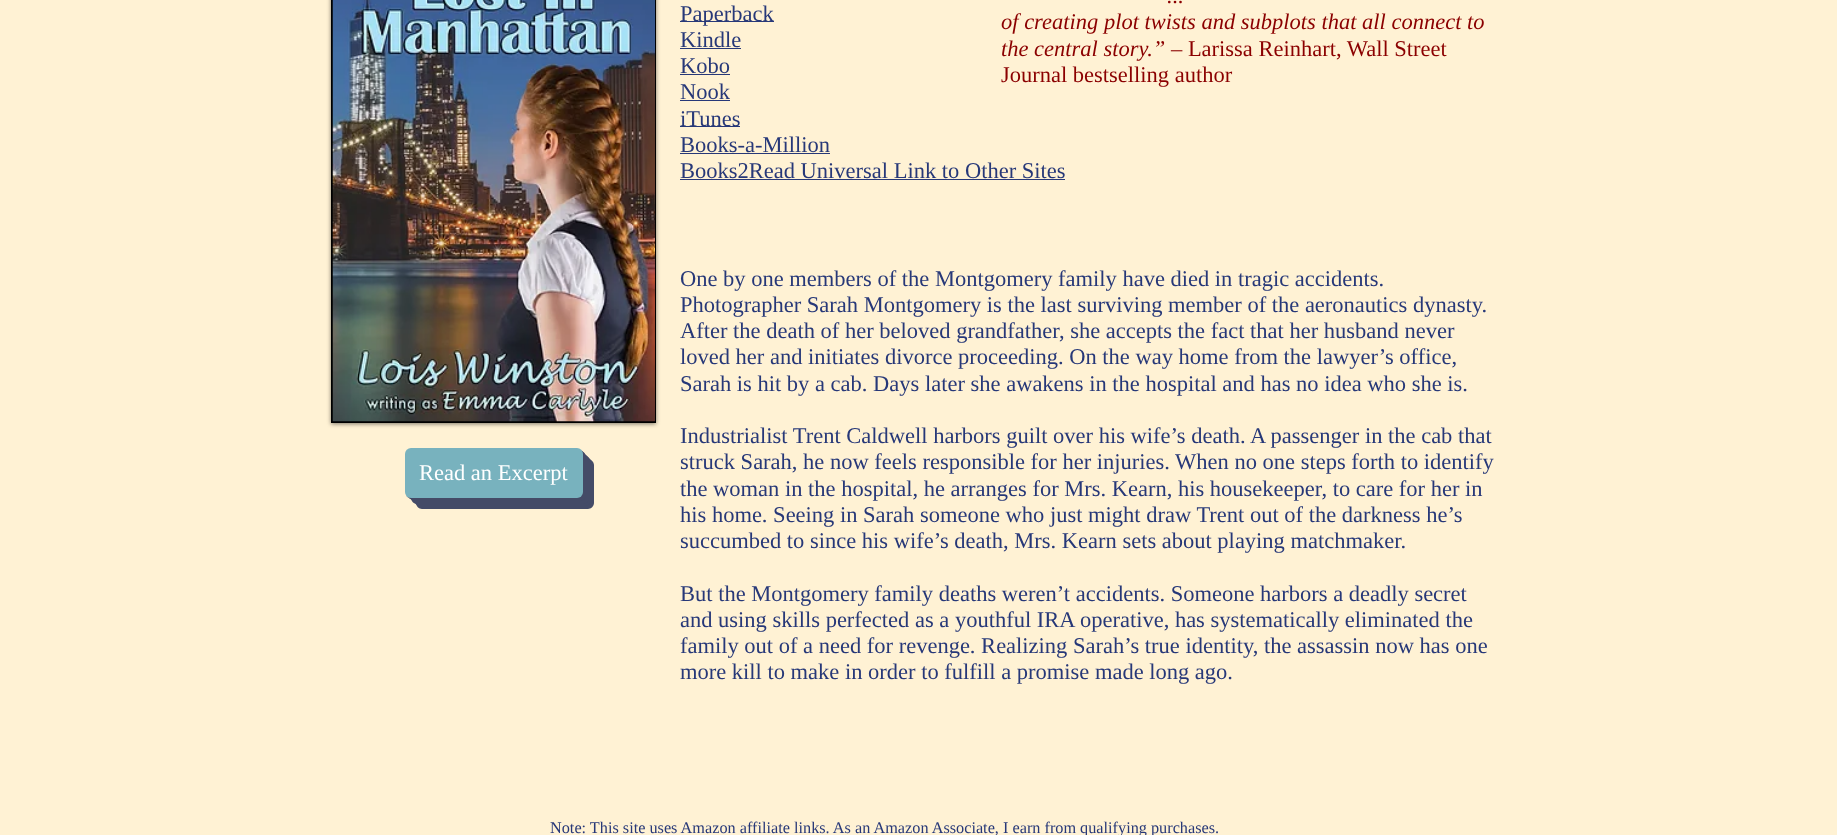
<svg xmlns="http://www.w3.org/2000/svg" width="1837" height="835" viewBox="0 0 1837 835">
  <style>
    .t1 { font: 22.5px Liberation Serif; fill: #273878; }
    .t2 { font: italic 22.5px Liberation Serif; fill: #8b0000; }
    .t3 { font: 22.5px Liberation Serif; fill: #8b0000; }
    .t4 { font: 22.5px Liberation Serif; fill: #fff; }
    .t5 { font: 16.25px Liberation Serif; fill: #273878; }
  </style>
  <rect width="100%" height="100%" fill="#fff2d4"/>
  <rect x="331" y="-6" width="325" height="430" fill="#00000080" filter="blur(2px)"/>
  <rect x="331" y="0" width="325" height="423" fill="#000"/>
  <image x="332" y="0" width="323" height="422" href="images/1.png"/>
  <rect x="680" y="21" width="94" height="1" fill="#273878"/>
  <text x="680" y="21" class="t1">Paperback</text>
  <text x="680" y="47" class="t1">Kindle</text>
  <rect x="680" y="48" width="61" height="1" fill="#273878"/>
  <text x="680" y="73" class="t1">Kobo</text>
  <rect x="680" y="74" width="50" height="1" fill="#273878"/>
  <text x="680" y="99" class="t1">Nook</text>
  <rect x="680" y="100" width="50" height="1" fill="#273878"/>
  <rect x="680" y="126" width="60" height="1" fill="#273878"/>
  <text x="680" y="126" class="t1">iTunes</text>
  <text x="680" y="152" class="t1">Books-a-Million</text>
  <rect x="680" y="153" width="150" height="1" fill="#273878"/>
  <text x="680" y="178" class="t1">Books2Read Universal Link to Other Sites</text>
  <rect x="680" y="179" width="385" height="1" fill="#273878"/>
  <text x="1167" y="3" class="t2">...</text>
  <text x="1001" y="29" class="t2">of creating plot twists and subplots that all connect to</text>
  <text x="1001" y="56" class="t2">the central story.”</text>
  <text x="1171" y="56" class="t3">– Larissa Reinhart, Wall Street</text>
  <text x="1001" y="82" class="t3">Journal bestselling author</text>
  <path d="M416 498V503C416 506 419 509 422 509H588C591 509 594 506 594 503V465C594 462 591 459 588 459H582V491C582 495 580 498 576 498Z" fill="#444b67"/>
  <path d="M414 498V500C414 503 417 506 420 506H585C588 506 591 503 591 500V462C591 459 588 456 585 456H582V491C582 495 580 498 576 498Z" fill="#444b67"/>
  <path d="M411 497V498C411 501 414 504 417 504H583C586 504 589 501 589 498V460C589 457 586 454 583 454H582V479C582 484 585 497 576 498Z" fill="#444b67"/>
  <path d="M409 497C410 499 412 501 415 501H580C583 501 586 498 586 495V457C586 454 584 452 582 451C583 454 582 458 582 460V493C580 502 557 498 549 498Z" fill="#444b67"/>
  <path d="M406 495C407 497 409 499 412 499H578C581 499 584 496 584 493V455C584 453 583 451 581 450C582 451 582 452 582 454V491C582 495 580 498 576 498H411C409 498 408 497 406 495Z" fill="#444b67"/>
  <rect x="405" y="448" width="178" height="50" rx="6" fill="#78b2be"/>
  <text x="419" y="480" class="t4">Read an Excerpt</text>
  <text x="680" y="286" class="t1">One by one members of the Montgomery family have died in tragic accidents.</text>
  <text x="680" y="312" class="t1">Photographer Sarah Montgomery is the last surviving member of the aeronautics dynasty.</text>
  <text x="680" y="338" class="t1">After the death of her beloved grandfather, she accepts the fact that her husband never</text>
  <text x="680" y="364" class="t1">loved her and initiates divorce proceeding. On the way home from the lawyer’s office,</text>
  <text x="680" y="391" class="t1">Sarah is hit by a cab. Days later she awakens in the hospital and has no idea who she is.</text>
  <text x="680" y="443" class="t1">Industrialist Trent Caldwell harbors guilt over his wife’s death. A passenger in the cab that</text>
  <text x="680" y="469" class="t1">struck Sarah, he now feels responsible for her injuries. When no one steps forth to identify</text>
  <text x="680" y="496" class="t1">the woman in the hospital, he arranges for Mrs. Kearn, his housekeeper, to care for her in</text>
  <text x="680" y="522" class="t1">his home. Seeing in Sarah someone who just might draw Trent out of the darkness he’s</text>
  <text x="680" y="548" class="t1">succumbed to since his wife’s death, Mrs. Kearn sets about playing matchmaker.</text>
  <text x="680" y="601" class="t1">But the Montgomery family deaths weren’t accidents. Someone harbors a deadly secret</text>
  <text x="680" y="627" class="t1">and using skills perfected as a youthful IRA operative, has systematically eliminated the</text>
  <text x="680" y="653" class="t1">family out of a need for revenge. Realizing Sarah’s true identity, the assassin now has one</text>
  <text x="680" y="679" class="t1">more kill to make in order to fulfill a promise made long ago.</text>
  <text x="550" y="833" class="t5">Note: This site uses Amazon affiliate links. As an Amazon Associate, I earn from qualifying purchases.</text>
</svg>
